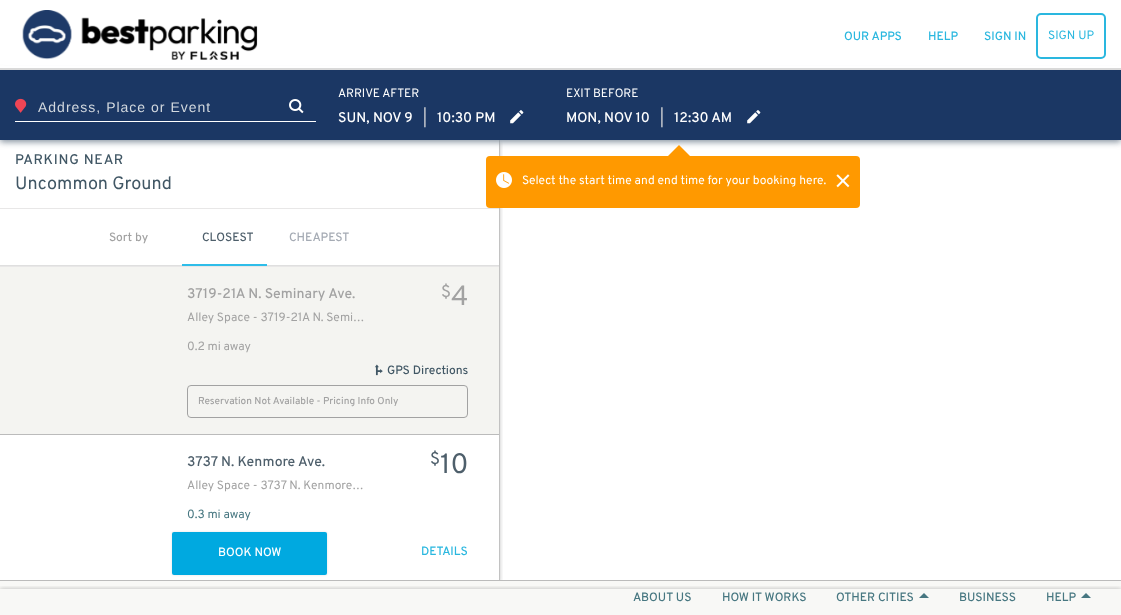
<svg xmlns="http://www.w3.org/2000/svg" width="1121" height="615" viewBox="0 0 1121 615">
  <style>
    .t1 { font: 500 12px Overpass; fill: #2ab7df; }
    .t2 { font: 12px Overpass; fill: #2ab7df; }
    .t3 { font: 14px Liberation Sans; letter-spacing: 1px; fill: #d2d8de; }
    .t4 { font: 12px Overpass; fill: #fff; }
    .t5 { font: 500 14px Overpass; fill: #fff; }
    .t6 { font: 14px Overpass; fill: #dfdfdf; }
    .t7 { font: 500 14px Overpass; letter-spacing: 0.75px; fill: #415765; }
    .t8 { font: 18px Overpass; fill: #415765; }
    .t9 { font: 500 12px Overpass; fill: #a2a2a2; }
    .t10 { font: 500 12px Overpass; fill: #4e5f6b; }
    .t11 { font: 500 12px Overpass; fill: #a5abb4; }
    .t12 { font: 500 14px Overpass; fill: #a2a2a2; }
    .t13 { font: 12px Overpass; fill: #a2a2a2; }
    .t14 { font: 17px Overpass; fill: #a2a2a2; }
    .t15 { font: 28px Overpass; fill: #a2a2a2; }
    .t16 { font: 500 12px Overpass; fill: #415765; }
    .t17 { font: 500 10px Overpass; fill: #a2a2a2; }
    .t18 { font: 500 14px Overpass; fill: #4e5f6b; }
    .t19 { font: 12px Overpass; fill: #477781; }
    .t20 { font: 17px Overpass; fill: #4e5f6b; }
    .t21 { font: 28px Overpass; fill: #4e5f6b; }
    .t22 { font: 500 12px Overpass; fill: #fff; }
    .t23 { font: 500 12px Overpass; fill: #477781; }
  </style>
  <defs>
    <clipPath id="clip1"><rect x="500" y="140" width="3" height="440"/></clipPath>
    <clipPath id="clip2"><rect x="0" y="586" width="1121" height="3"/></clipPath>
  </defs>
  <rect width="100%" height="100%" fill="#fff"/>
  <g clip-path="url(#clip1)">
    <rect x="0" y="142" width="500" height="440" fill="#0000003d" filter="blur(2px)"/>
  </g>
  <rect x="499" y="140" width="1" height="440" fill="#c2c2c2"/>
  <rect x="0" y="72" width="1121" height="70" fill="#84919e" filter="blur(3px)"/>
  <rect x="0" y="66" width="1121" height="2" fill="#fff"/>
  <rect x="0" y="68" width="1121" height="2" fill="#d9d9d9"/>
  <image x="22" y="10" width="236" height="50" href="images/1.png"/>
  <text x="844" y="40" class="t1">OUR APPS</text>
  <text x="928" y="40" class="t1">HELP</text>
  <text x="984" y="40" class="t1">SIGN IN</text>
  <rect x="1037" y="14" width="68" height="44" rx="4" fill="none" stroke="#2ab7df" stroke-width="2"/>
  <text x="1048" y="39" class="t2">SIGN UP</text>
  <rect x="0" y="70" width="1121" height="70" fill="#1b3764"/>
  <rect x="15" y="121" width="11" height="1" fill="#fff"/>
  <image x="15" y="98" width="12" height="15" href="images/2.png"/>
  <image x="289" y="99" width="15" height="15" href="images/3.png"/>
  <rect x="26" y="121" width="290" height="1" fill="#fff"/>
  <text x="38" y="112" class="t3">Address, Place or Event</text>
  <text x="338" y="97" class="t4">ARRIVE AFTER</text>
  <text x="338" y="122" class="t5">SUN, NOV 9</text>
  <text x="423" y="122" class="t6">|</text>
  <text x="437" y="122" class="t5">10:30 PM</text>
  <image x="510" y="110" width="14" height="14" href="images/4.png"/>
  <text x="566" y="97" class="t4">EXIT BEFORE</text>
  <text x="566" y="122" class="t5">MON, NOV 10</text>
  <text x="660" y="122" class="t6">|</text>
  <text x="674" y="122" class="t5">12:30 AM</text>
  <image x="747" y="110" width="14" height="14" href="images/4.png"/>
  <rect x="0" y="208" width="499" height="1" fill="#e8e7e7"/>
  <text x="15" y="164" class="t7">PARKING NEAR</text>
  <text x="15" y="189" class="t8">Uncommon Ground</text>
  <rect x="0" y="266" width="499" height="1" fill="#e8e7e7"/>
  <rect x="0" y="265" width="499" height="1" fill="#dfdfdf"/>
  <text x="109" y="241" class="t9">Sort by</text>
  <text x="202" y="241" class="t10">CLOSEST</text>
  <text x="289" y="241" class="t11">CHEAPEST</text>
  <rect x="182" y="264" width="85" height="2" fill="#2ebde9"/>
  <rect x="0" y="267" width="499" height="167" fill="#f4f4f1"/>
  <rect x="0" y="434" width="499" height="1" fill="#bbb"/>
  <text x="187" y="298" class="t12">3719-21A N. Seminary Ave.</text>
  <text x="187" y="321" class="t13">Alley Space - 3719-21A N. Semi…</text>
  <text x="187" y="350" class="t13">0.2 mi away</text>
  <text x="441" y="297" class="t14">$</text>
  <text x="451" y="305" class="t15">4</text>
  <image x="374" y="364" width="9" height="12" href="images/5.png"/>
  <text x="387" y="374" class="t16">GPS Directions</text>
  <rect x="187.5" y="385.5" width="280" height="32" rx="3.5" fill="none" stroke="#a2a2a2"/>
  <text x="198" y="404" class="t17">Reservation Not Available - Pricing Info Only</text>
  <text x="187" y="466" class="t18">3737 N. Kenmore Ave.</text>
  <text x="187" y="489" class="t13">Alley Space - 3737 N. Kenmore…</text>
  <text x="187" y="518" class="t19">0.3 mi away</text>
  <text x="430" y="464" class="t20">$</text>
  <text x="440" y="473" class="t21">10</text>
  <rect x="172" y="532" width="155" height="43" rx="2" fill="#0000001f" filter="blur(1px)"/>
  <rect x="172" y="532" width="155" height="43" rx="2" fill="#00a9e0"/>
  <text x="218" y="556" class="t22">BOOK NOW</text>
  <text x="421" y="555" class="t1">DETAILS</text>
  <rect x="486" y="156" width="374" height="52" rx="4" fill="#f90"/>
  <path d="M691 157H667L679 145Z" fill="#f90"/>
  <image x="496" y="172" width="16" height="16" href="images/6.png"/>
  <text x="522" y="184" class="t4">Select the start time and end time for your booking here.</text>
  <image x="836" y="174" width="14" height="14" href="images/7.png"/>
  <rect x="0" y="581" width="1121" height="34" fill="#f8f8f6"/>
  <rect x="0" y="580" width="1121" height="1" fill="#bbb"/>
  <g clip-path="url(#clip2)">
    <rect x="0" y="589" width="1121" height="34" fill="#00000040" filter="blur(2.5px)"/>
  </g>
  <text x="633" y="601" class="t23">ABOUT US</text>
  <text x="722" y="601" class="t23">HOW IT WORKS</text>
  <text x="836" y="601" class="t23">OTHER CITIES</text>
  <path d="M929 598H919L924 593Z" fill="#477781"/>
  <text x="959" y="601" class="t23">BUSINESS</text>
  <text x="1046" y="601" class="t23">HELP</text>
  <path d="M1091 598H1081L1086 593Z" fill="#477781"/>
</svg>
